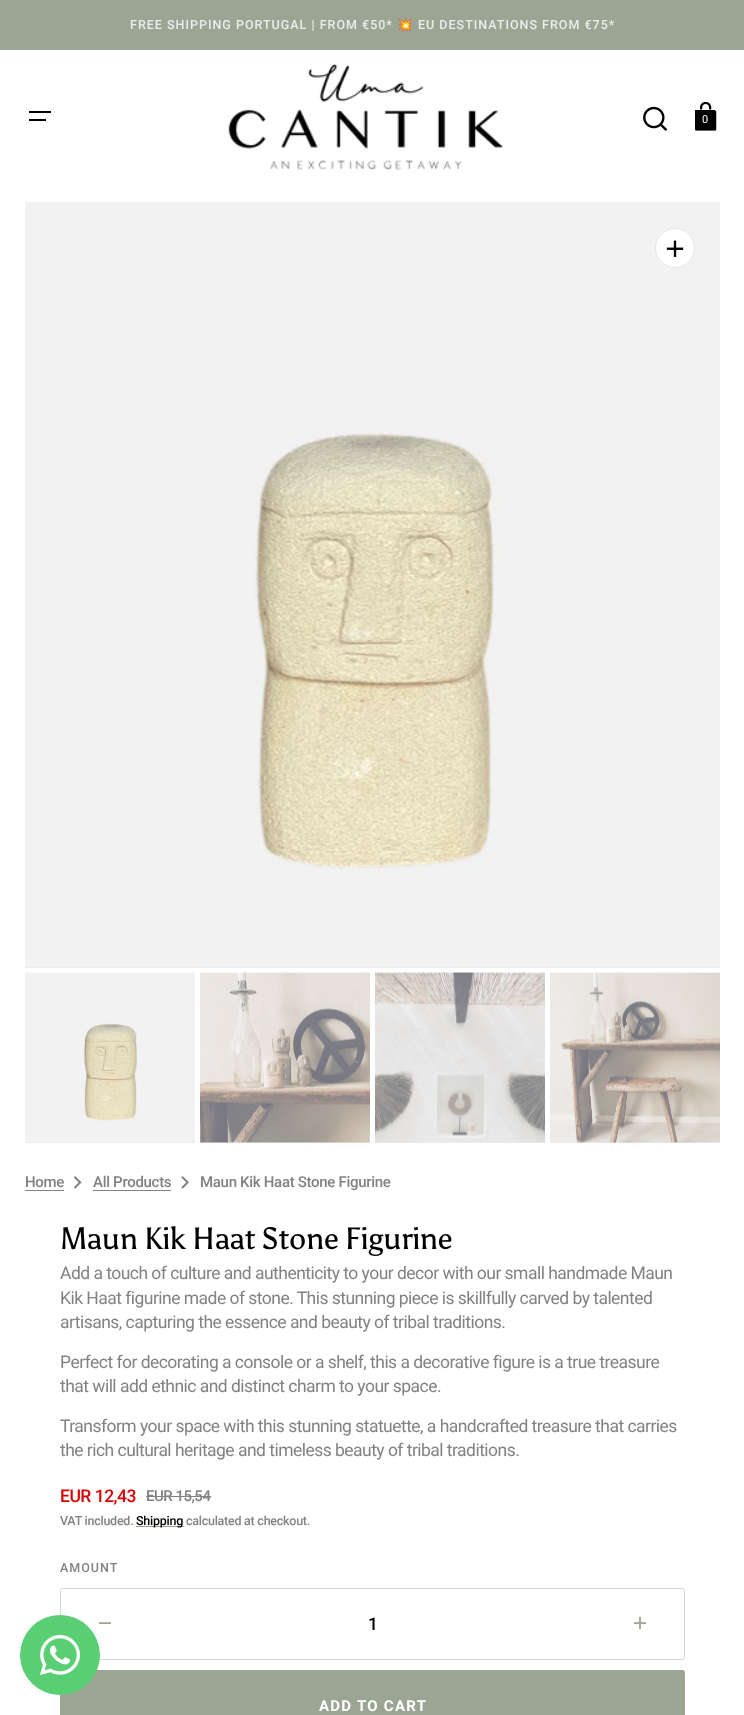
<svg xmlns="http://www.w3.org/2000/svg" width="744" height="1715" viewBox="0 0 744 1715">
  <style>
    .t1 { font: 500 12.5px Roboto; letter-spacing: 1px; fill: #ebedea; }
    .t2 { font: 12.5px Noto Color Emoji; letter-spacing: 1px; fill: #ebedea; }
    .t3 { font: 11px Roboto; fill: #fff; }
    .t4 { font: 500 15px Roboto; letter-spacing: -0.3px; fill: #838282; }
    .t5 { font: 30.75px Asul; letter-spacing: -0.6px; fill: #000; }
    .t6 { font: 17.5px Roboto; letter-spacing: -0.53px; fill: #838282; }
    .t7 { font: 500 17.5px Roboto; letter-spacing: -0.5px; fill: #db0000; }
    .t8 { font: 500 15px Roboto; letter-spacing: -0.5px; fill: #838282; }
    .t9 { font: 500 12.5px Roboto; letter-spacing: -0.25px; fill: #838282; }
    .t10 { font: 500 12.5px Roboto; letter-spacing: -0.25px; fill: #000; }
    .t11 { font: 500 12.5px Roboto; letter-spacing: 1px; fill: #838282; }
    .t12 { font: 500 17.5px Roboto; fill: #000; }
    .t13 { font: bold 15px Roboto; letter-spacing: 1.25px; fill: #fff; }
  </style>
  <rect width="100%" height="100%" fill="#fff"/>
  <rect x="0" y="0" width="744" height="50" fill="#9ba594"/>
  <text x="130" y="29" class="t1">FREE SHIPPING PORTUGAL | FROM €50*</text>
  <text x="397" y="29" class="t2">💥</text>
  <text x="418" y="29" class="t1">EU DESTINATIONS FROM €75*</text>
  <rect x="29" y="111" width="22" height="2" fill="#000"/>
  <rect x="29" y="119" width="17" height="2" fill="#000"/>
  <image x="228" y="63" width="275" height="107" href="images/1.png"/>
  <image x="643" y="106" width="25" height="25" href="images/2.png"/>
  <image x="695" y="101" width="22" height="30" href="images/3.png"/>
  <rect x="695" y="110" width="20" height="20" fill="#000"/>
  <text x="702" y="123" class="t3">0</text>
  <rect x="25" y="203" width="695" height="765" fill="#eeecea"/>
  <image x="25" y="202" width="695" height="765" href="images/4.png"/>
  <circle cx="675" cy="248" r="20" fill="#fff"/>
  <circle cx="675" cy="248" r="19.5" fill="none" stroke="#0000001a"/>
  <image x="666" y="240" width="18" height="17" href="images/5.png"/>
  <rect x="25" y="1142" width="170" height="1" fill="#eeecea"/>
  <image x="25" y="972" width="170" height="170" href="images/6.png"/>
  <rect x="200" y="973" width="170" height="170" fill="#eeecea"/>
  <image x="200" y="972" width="170" height="171" href="images/7.png"/>
  <rect x="375" y="973" width="170" height="170" fill="#eeecea"/>
  <image x="375" y="972" width="170" height="171" href="images/8.png"/>
  <rect x="550" y="973" width="170" height="170" fill="#eeecea"/>
  <image x="550" y="972" width="170" height="171" href="images/9.png"/>
  <text x="25" y="1187" class="t4">Home</text>
  <rect x="25" y="1190" width="39" height="1" fill="#838282"/>
  <image x="74" y="1176" width="8" height="13" href="images/10.png"/>
  <text x="93" y="1187" class="t4">All Products</text>
  <rect x="93" y="1190" width="78" height="1" fill="#838282"/>
  <image x="181" y="1176" width="8" height="13" href="images/11.png"/>
  <text x="200" y="1187" class="t4">Maun Kik Haat Stone Figurine</text>
  <text x="60" y="1249" class="t5">Maun Kik Haat Stone Figurine</text>
  <text x="60" y="1279" class="t6">Add a touch of culture and authenticity to your decor with our small handmade Maun</text>
  <text x="60" y="1304" class="t6">Kik Haat figurine made of stone. This stunning piece is skillfully carved by talented</text>
  <text x="60" y="1328" class="t6">artisans, capturing the essence and beauty of tribal traditions.</text>
  <text x="60" y="1368" class="t6">Perfect for decorating a console or a shelf, this a decorative figure is a true treasure</text>
  <text x="60" y="1392" class="t6">that will add ethnic and distinct charm to your space.</text>
  <text x="60" y="1432" class="t6">Transform your space with this stunning statuette, a handcrafted treasure that carries</text>
  <text x="60" y="1456" class="t6">the rich cultural heritage and timeless beauty of tribal traditions.</text>
  <text x="60" y="1502" class="t7">EUR 12,43</text>
  <text x="146" y="1501" class="t8">EUR 15,54</text>
  <rect x="146" y="1496" width="65" height="1" fill="#838282"/>
  <text x="60" y="1525" class="t9">VAT included.</text>
  <rect x="136" y="1526" width="48" height="1" fill="#9ba594"/>
  <text x="136" y="1525" class="t10">Shipping</text>
  <text x="186" y="1525" class="t9">calculated at checkout.</text>
  <text x="60" y="1572" class="t11">AMOUNT</text>
  <rect x="60.5" y="1588.5" width="624" height="71" rx="2" fill="none" stroke="#d6d6d6"/>
  <image x="99" y="1622" width="12" height="2" href="images/12.png"/>
  <text x="368" y="1630" class="t12">1</text>
  <image x="634" y="1616" width="12" height="14" href="images/13.png"/>
  <rect x="60" y="1670" width="625" height="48" rx="2.5" fill="#9ba594"/>
  <text x="319" y="1711" class="t13">ADD TO CART</text>
  <circle cx="60" cy="1655" r="40" fill="#59ce72"/>
  <image x="40" y="1635" width="40" height="40" href="images/14.png"/>
</svg>
